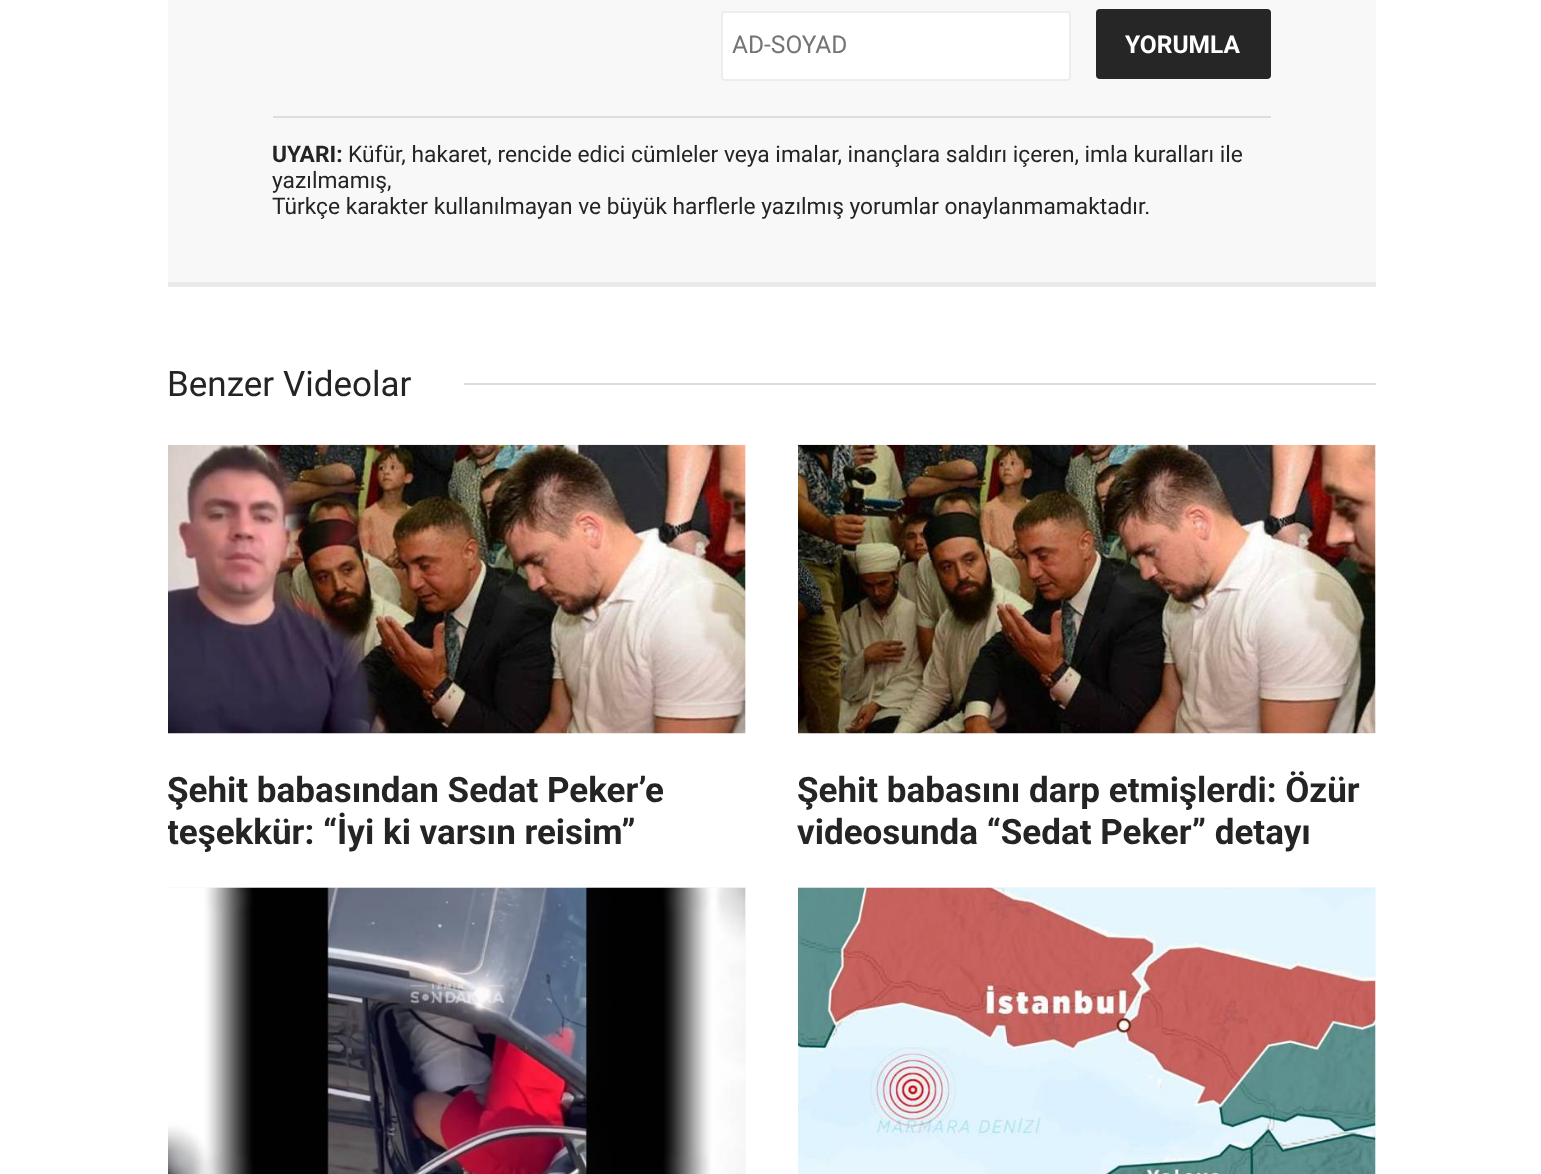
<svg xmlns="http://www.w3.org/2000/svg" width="1541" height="1174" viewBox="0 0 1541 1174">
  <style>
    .t1 { font: 24.5px Roboto; fill: #757575; }
    .t2 { font: bold 24.5px Roboto; fill: #fff; }
    .t3 { font: bold 22.75px Roboto; fill: #242424; }
    .t4 { font: 22.75px Roboto; fill: #242424; }
    .t5 { font: 35px Roboto; fill: #242424; }
    .t6 { font: bold 35px Roboto; fill: #242424; }
  </style>
  <defs>
    <clipPath id="clip1"><rect x="168" y="768" width="578" height="84"/></clipPath>
  </defs>
  <rect width="100%" height="100%" fill="#fff"/>
  <rect x="168" y="0" width="1208" height="282" fill="#f8f8f8"/>
  <rect x="168" y="282" width="1208" height="5" fill="#e9e9e9"/>
  <rect x="722" y="12" width="348" height="68" rx="3" fill="#fff" stroke="#ededed" stroke-width="2"/>
  <text x="732" y="53" class="t1">AD-SOYAD</text>
  <rect x="1096" y="9" width="175" height="70" rx="4" fill="#262626"/>
  <text x="1125" y="53" class="t2">YORUMLA</text>
  <rect x="273" y="116" width="998" height="2" fill="#ddd"/>
  <text x="272" y="162" class="t3">UYARI:</text>
  <text x="348" y="162" class="t4">Küfür, hakaret, rencide edici cümleler veya imalar, inançlara saldırı içeren, imla kuralları ile</text>
  <text x="272" y="188" class="t4">yazılmamış,</text>
  <text x="272" y="214" class="t4">Türkçe karakter kullanılmayan ve büyük harflerle yazılmış yorumlar onaylanmamaktadır.</text>
  <text x="167" y="396" class="t5">Benzer Videolar</text>
  <rect x="464" y="383" width="912" height="2" fill="#d9dbe2"/>
  <rect x="745" y="445" width="1" height="288" fill="#f8f8f8"/>
  <image x="168" y="444" width="578" height="290" href="images/1.png"/>
  <text x="167" y="802" class="t6">Şehit babasından Sedat Peker’e</text>
  <g clip-path="url(#clip1)">
    <text x="167" y="844" class="t6">teşekkür: “İyi ki varsın reisim”</text>
  </g>
  <rect x="1375" y="445" width="1" height="288" fill="#f8f8f8"/>
  <image x="798" y="444" width="578" height="290" href="images/2.png"/>
  <text x="797" y="802" class="t6">Şehit babasını darp etmişlerdi: Özür</text>
  <text x="797" y="844" class="t6">videosunda “Sedat Peker” detayı</text>
  <rect x="168" y="887" width="578" height="287" fill="#f8f8f8"/>
  <image x="168" y="887" width="578" height="287" href="images/3.png"/>
  <rect x="798" y="887" width="578" height="287" fill="#f8f8f8"/>
  <image x="798" y="887" width="578" height="287" href="images/4.png"/>
</svg>
